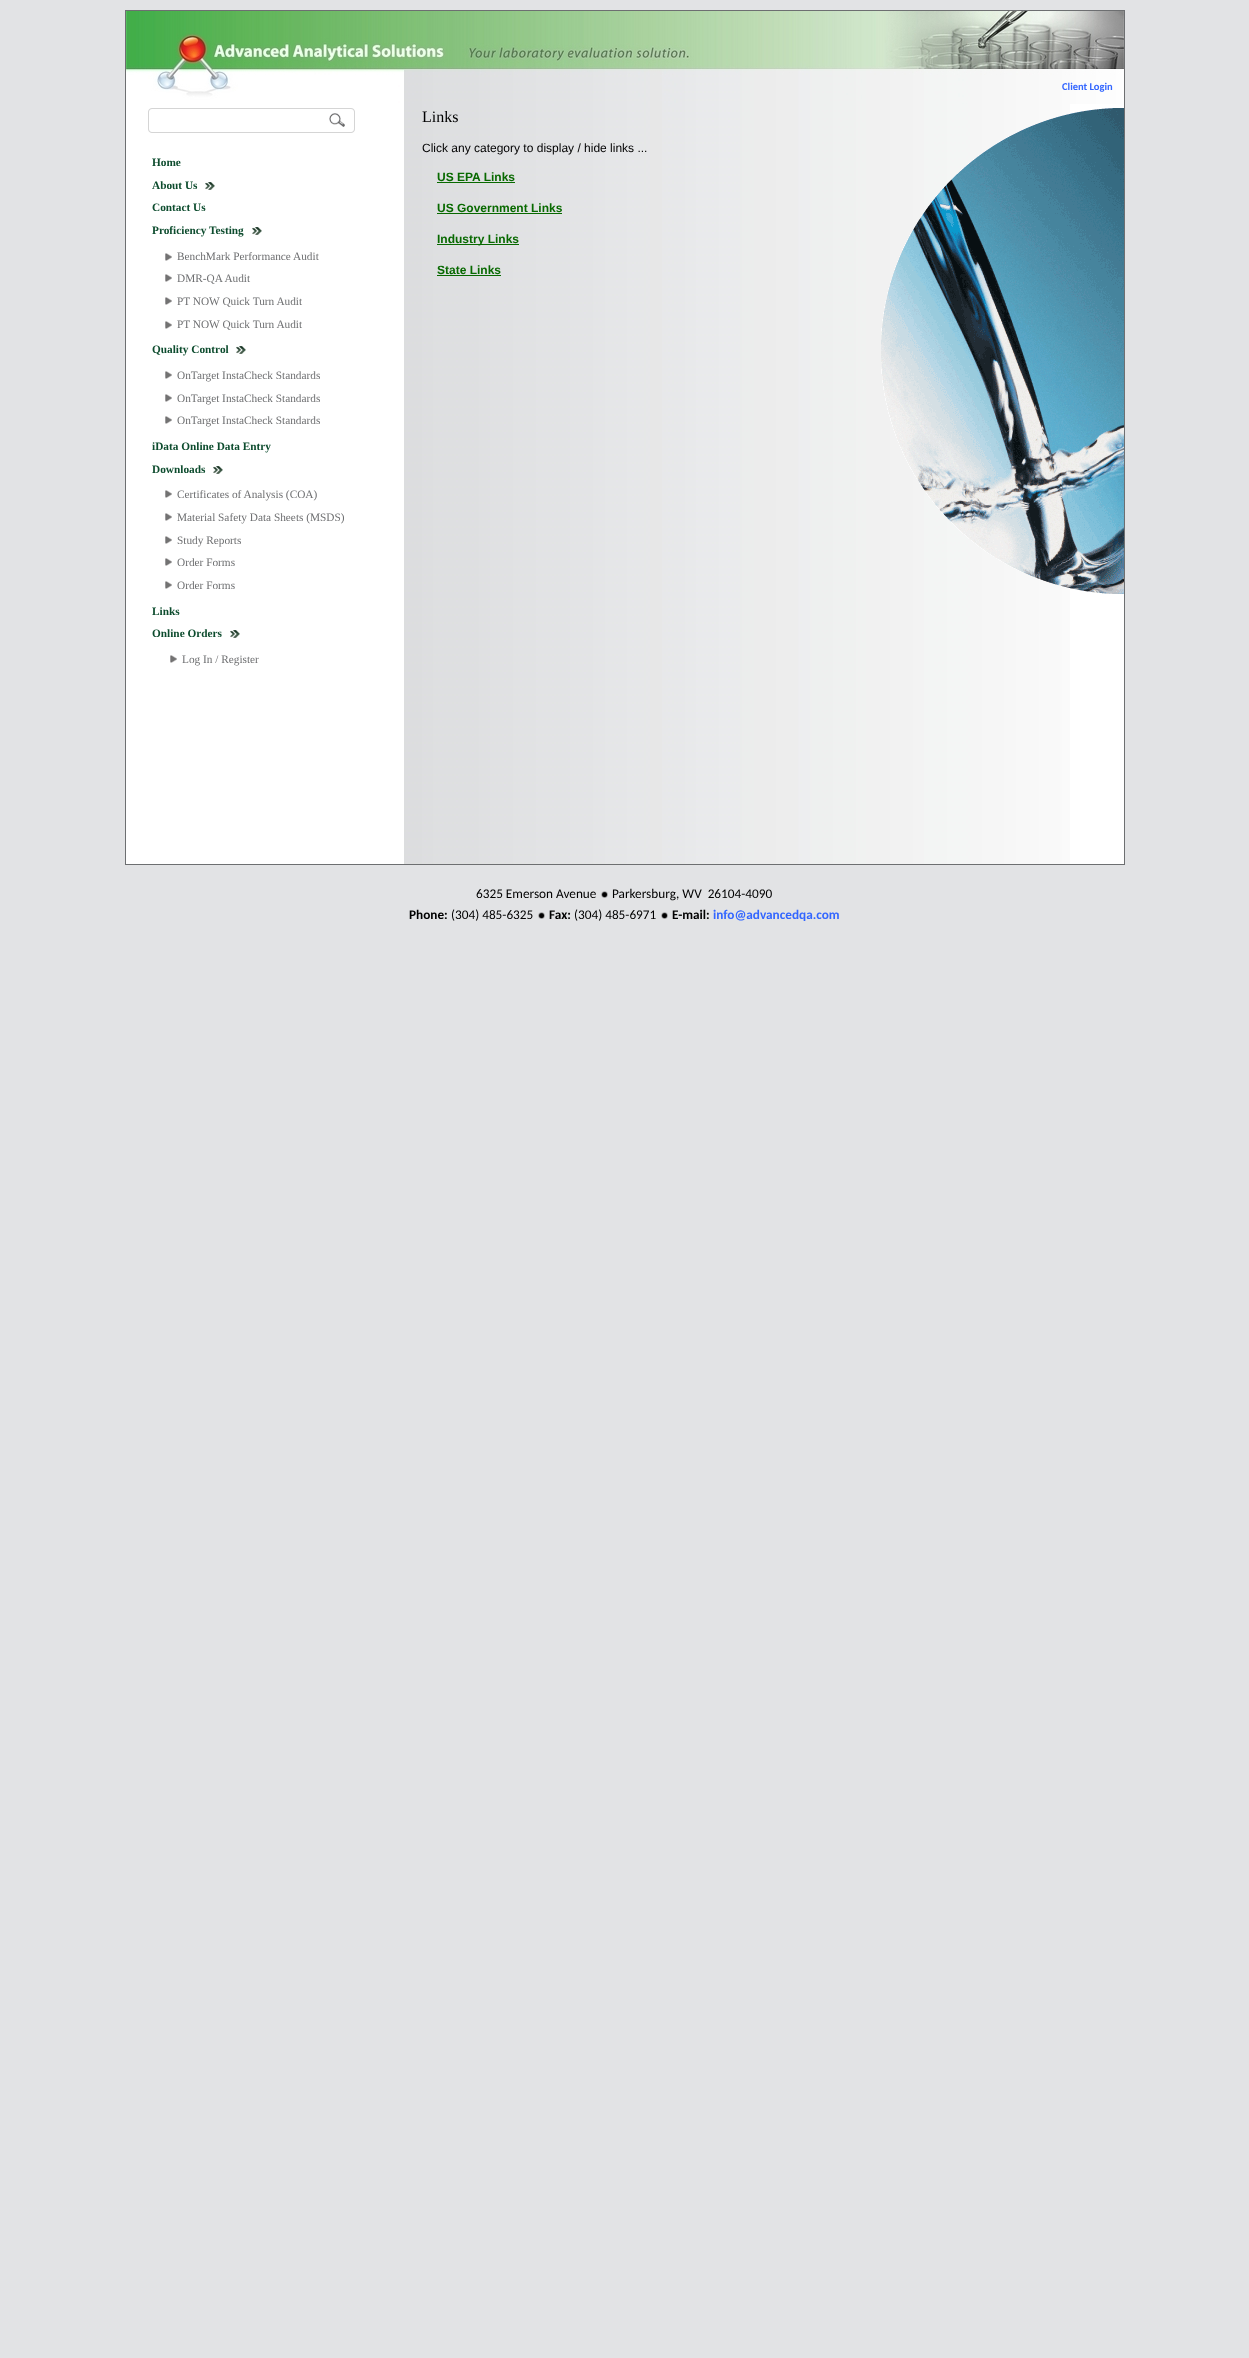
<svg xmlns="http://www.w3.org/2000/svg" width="1249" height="2358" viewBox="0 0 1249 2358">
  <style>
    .t1 { font: bold 10.5px Carlito; fill: #36f; }
    .t2 { font: bold 11.3px Liberation Serif; fill: #0d4c2e; }
    .t3 { font: 11.3px Liberation Serif; fill: #6e6f71; }
    .t4 { font: 16px Liberation Serif; fill: #000; }
    .t5 { font: 12px Liberation Sans; fill: #000; }
    .t6 { font: bold 12px Liberation Sans; fill: #086900; }
    .t7 { font: 13.25px Carlito; fill: #000; }
    .t8 { font: bold 13.25px Carlito; fill: #000; }
    .t9 { font: bold 13.25px Carlito; fill: #36f; }
  </style>
  <rect width="100%" height="100%" fill="#e2e3e5"/>
  <rect x="126" y="104" width="998" height="760" fill="#fff"/>
  <rect x="125.5" y="10.5" width="999" height="854" fill="none" stroke="#6d6f71"/>
  <image x="126" y="11" width="998" height="93" href="images/1.png"/>
  <text x="1062" y="90" class="t1">Client Login</text>
  <image x="148" y="108" width="207" height="25" href="images/2.png"/>
  <image x="329" y="113" width="16" height="14" href="images/3.png"/>
  <text x="152" y="166" class="t2">Home</text>
  <text x="152" y="189" class="t2">About Us</text>
  <image x="205" y="182" width="10" height="8" href="images/4.png"/>
  <text x="152" y="211" class="t2">Contact Us</text>
  <text x="152" y="234" class="t2">Proficiency Testing</text>
  <image x="252" y="227" width="10" height="8" href="images/4.png"/>
  <image x="165" y="253" width="7" height="8" href="images/5.png"/>
  <text x="177" y="260" class="t3">BenchMark Performance Audit</text>
  <image x="165" y="274" width="7" height="8" href="images/5.png"/>
  <text x="177" y="282" class="t3">DMR-QA Audit</text>
  <image x="165" y="297" width="7" height="8" href="images/5.png"/>
  <text x="177" y="305" class="t3">PT NOW Quick Turn Audit</text>
  <image x="165" y="321" width="7" height="8" href="images/5.png"/>
  <text x="177" y="328" class="t3">PT NOW Quick Turn Audit</text>
  <text x="152" y="353" class="t2">Quality Control</text>
  <image x="236" y="346" width="10" height="8" href="images/4.png"/>
  <image x="165" y="371" width="7" height="8" href="images/5.png"/>
  <text x="177" y="379" class="t3">OnTarget InstaCheck Standards</text>
  <image x="165" y="394" width="7" height="8" href="images/5.png"/>
  <text x="177" y="402" class="t3">OnTarget InstaCheck Standards</text>
  <image x="165" y="416" width="7" height="8" href="images/5.png"/>
  <text x="177" y="424" class="t3">OnTarget InstaCheck Standards</text>
  <text x="152" y="450" class="t2">iData Online Data Entry</text>
  <text x="152" y="473" class="t2">Downloads</text>
  <image x="213" y="466" width="10" height="8" href="images/4.png"/>
  <image x="165" y="490" width="7" height="8" href="images/5.png"/>
  <text x="177" y="498" class="t3">Certificates of Analysis (COA)</text>
  <image x="165" y="513" width="7" height="8" href="images/5.png"/>
  <text x="177" y="521" class="t3">Material Safety Data Sheets (MSDS)</text>
  <image x="165" y="536" width="7" height="8" href="images/5.png"/>
  <text x="177" y="544" class="t3">Study Reports</text>
  <image x="165" y="558" width="7" height="8" href="images/5.png"/>
  <text x="177" y="566" class="t3">Order Forms</text>
  <image x="165" y="581" width="7" height="8" href="images/5.png"/>
  <text x="177" y="589" class="t3">Order Forms</text>
  <text x="152" y="615" class="t2">Links</text>
  <text x="152" y="637" class="t2">Online Orders</text>
  <image x="230" y="630" width="10" height="8" href="images/4.png"/>
  <image x="170" y="655" width="7" height="8" href="images/5.png"/>
  <text x="182" y="663" class="t3">Log In / Register</text>
  <image x="404" y="104" width="666" height="760" href="images/6.png"/>
  <text x="422" y="122" class="t4">Links</text>
  <image x="881" y="108" width="243" height="486" href="images/7.png"/>
  <text x="422" y="152" class="t5">Click any category to display / hide links ...</text>
  <text x="437" y="181" class="t6">US EPA Links</text>
  <rect x="437" y="182" width="78" height="1" fill="#086900"/>
  <text x="437" y="212" class="t6">US Government Links</text>
  <rect x="437" y="213" width="125" height="1" fill="#086900"/>
  <rect x="437" y="244" width="82" height="1" fill="#086900"/>
  <text x="437" y="243" class="t6">Industry Links</text>
  <text x="437" y="274" class="t6">State Links</text>
  <rect x="437" y="275" width="64" height="1" fill="#086900"/>
  <text x="476" y="898" class="t7">6325 Emerson Avenue</text>
  <image x="601" y="891" width="7" height="7" href="images/8.png"/>
  <text x="612" y="898" class="t7" xml:space="preserve">Parkersburg, WV  26104-4090</text>
  <text x="409" y="919" class="t8">Phone:</text>
  <text x="451" y="919" class="t7">(304) 485-6325</text>
  <image x="538" y="912" width="7" height="7" href="images/8.png"/>
  <text x="549" y="919" class="t8">Fax:</text>
  <text x="574" y="919" class="t7">(304) 485-6971</text>
  <image x="661" y="912" width="7" height="7" href="images/8.png"/>
  <text x="672" y="919" class="t8">E-mail:</text>
  <text x="713" y="919" class="t9">info@advancedqa.com</text>
</svg>
